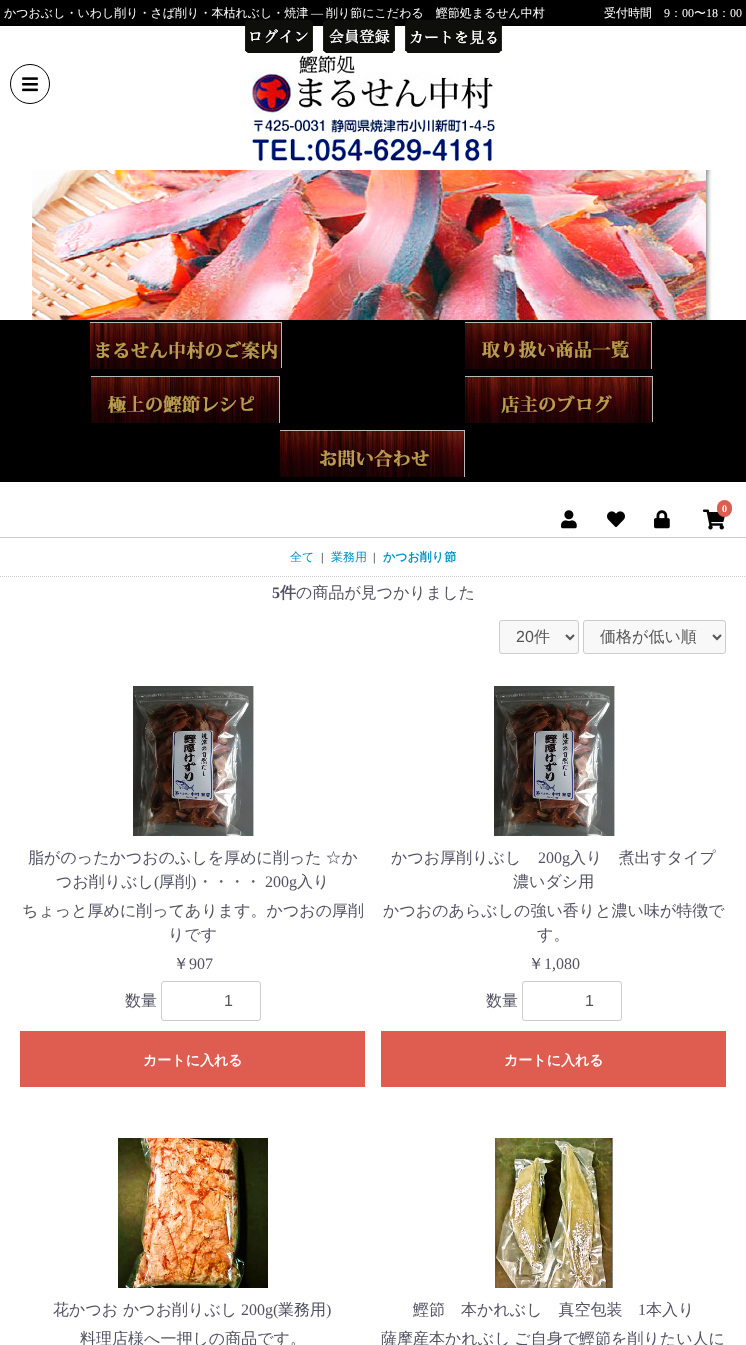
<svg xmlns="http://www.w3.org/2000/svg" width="746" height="1345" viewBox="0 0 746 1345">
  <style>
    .t1 { font: 500 12px WenQuanYi Zen Hei; fill: #fff; }
    .t2 { font: 12px Liberation Serif; fill: #fff; }
    .t3 { font: bold 10px Liberation Serif; fill: #fff; }
    .t4 { font: 500 12px WenQuanYi Zen Hei; fill: #0092c4; }
    .t5 { font: 12px Liberation Serif; fill: #000; }
    .t6 { font: bold 12px WenQuanYi Zen Hei; fill: #0092c4; }
    .t7 { font: bold 16px Liberation Serif; fill: #525263; }
    .t8 { font: bold 16px WenQuanYi Zen Hei; fill: #525263; }
    .t9 { font: 500 16px WenQuanYi Zen Hei; fill: #525263; }
    .t10 { font: 16px Liberation Sans; fill: #555; }
    .t11 { font: 500 16px WenQuanYi Zen Hei; fill: #555; }
    .t12 { font: 16px Liberation Serif; fill: #525263; }
    .t13 { font: bold 14px WenQuanYi Zen Hei; fill: #fff; }
  </style>
  <rect width="100%" height="100%" fill="#fff"/>
  <rect x="0" y="0" width="746" height="26" fill="#000"/>
  <text x="4" y="17" class="t1">かつおぶし・いわし削り・さば削り・本枯れぶし・焼津</text>
  <text x="311" y="17" class="t2">―</text>
  <text x="326" y="17" class="t1">削り節にこだわる　鰹節処まるせん中村</text>
  <text x="604" y="17" class="t1">受付時間</text>
  <text x="664" y="17" class="t2">9</text>
  <text x="670" y="17" class="t1">：</text>
  <text x="682" y="17" class="t2">00</text>
  <text x="694" y="17" class="t1">〜</text>
  <text x="706" y="17" class="t2">18</text>
  <text x="718" y="17" class="t1">：</text>
  <text x="730" y="17" class="t2">00</text>
  <image x="245" y="20" width="68" height="33" href="images/1.png"/>
  <image x="323" y="20" width="72" height="33" href="images/2.png"/>
  <image x="405" y="20" width="97" height="33" href="images/3.png"/>
  <image x="251" y="54" width="245" height="108" href="images/4.png"/>
  <image x="32" y="170" width="683" height="150" href="images/5.png"/>
  <rect x="0" y="320" width="746" height="162" fill="#000"/>
  <image x="90" y="322" width="192" height="47" href="images/6.png"/>
  <image x="465" y="322" width="187" height="47" href="images/7.png"/>
  <image x="91" y="376" width="189" height="47" href="images/8.png"/>
  <image x="465" y="376" width="188" height="47" href="images/9.png"/>
  <image x="280" y="430" width="185" height="47" href="images/10.png"/>
  <circle cx="30" cy="84" r="19.5" fill="none" stroke="#000"/>
  <image x="22" y="77" width="16" height="15" href="images/11.png"/>
  <image x="703" y="509" width="22" height="21" href="images/12.png"/>
  <rect x="717" y="500" width="15" height="17" rx="7.5" fill="#de5d50"/>
  <text x="722" y="512" class="t3">0</text>
  <image x="561" y="510" width="16" height="19" href="images/13.png"/>
  <image x="607" y="511" width="18" height="17" href="images/14.png"/>
  <image x="654" y="510" width="16" height="19" href="images/15.png"/>
  <rect x="0" y="537" width="746" height="1" fill="#ccc"/>
  <path d="M0 576.5H746" fill="none" stroke="#ccc" stroke-dasharray="1 1"/>
  <text x="290" y="561" class="t4">全て</text>
  <text x="321" y="561" class="t5">|</text>
  <text x="331" y="561" class="t4">業務用</text>
  <text x="373" y="561" class="t5">|</text>
  <text x="383" y="561" class="t6">かつお削り節</text>
  <text x="272" y="598" class="t7">5</text>
  <text x="280" y="598" class="t8">件</text>
  <text x="296" y="598" class="t9">の商品が見つかりました</text>
  <rect x="499.5" y="620.5" width="79" height="33" rx="2.5" fill="#f8f8f8" stroke="#ccc"/>
  <path d="M566 635L570 639L574 635" fill="none" stroke="#555" stroke-width="2"/>
  <text x="516" y="642" class="t10">20</text>
  <text x="534" y="642" class="t11">件</text>
  <rect x="583.5" y="620.5" width="142" height="33" rx="2.5" fill="#f8f8f8" stroke="#ccc"/>
  <path d="M713 635L717 639L721 635" fill="none" stroke="#555" stroke-width="2"/>
  <text x="600" y="642" class="t11">価格が低い順</text>
  <image x="133" y="686" width="121" height="150" href="images/16.png"/>
  <text x="28" y="863" word-spacing="-1" class="t9">脂がのったかつおのふしを厚めに削った ☆か</text>
  <text x="56" y="887" class="t9">つお削りぶし</text>
  <text x="154" y="887" class="t12">(</text>
  <text x="159" y="887" class="t9">厚削</text>
  <text x="191" y="887" class="t12">)</text>
  <text x="197" y="887" class="t9">・・・・</text>
  <text x="265" y="887" class="t12">200g</text>
  <text x="297" y="887" class="t9">入り</text>
  <text x="22" y="916" class="t9">ちょっと厚めに削ってあります。かつおの厚削</text>
  <text x="168" y="940" class="t9">りです</text>
  <text x="173" y="969" class="t9">￥</text>
  <text x="189" y="969" class="t12">907</text>
  <text x="125" y="1006" class="t9">数量</text>
  <rect x="161.5" y="981.5" width="99" height="39" rx="2.5" fill="none" stroke="#ccc"/>
  <text x="224" y="1006" class="t10">1</text>
  <rect x="20" y="1031" width="345" height="56" fill="#de5d50"/>
  <text x="143" y="1065" class="t13">カートに入れる</text>
  <image x="494" y="686" width="121" height="150" href="images/16.png"/>
  <text x="391" y="863" class="t9">かつお厚削りぶし</text>
  <text x="538" y="863" class="t12">200g</text>
  <text x="570" y="863" class="t9">入り　煮出すタイプ</text>
  <text x="513" y="887" class="t9">濃いダシ用</text>
  <text x="383" y="916" class="t9">かつおのあらぶしの強い香りと濃い味が特徴で</text>
  <text x="537" y="940" class="t9">す。</text>
  <text x="528" y="969" class="t9">￥</text>
  <text x="544" y="969" class="t12">1,080</text>
  <text x="486" y="1006" class="t9">数量</text>
  <rect x="522.5" y="981.5" width="99" height="39" rx="2.5" fill="none" stroke="#ccc"/>
  <text x="585" y="1006" class="t10">1</text>
  <rect x="381" y="1031" width="345" height="56" fill="#de5d50"/>
  <text x="504" y="1065" class="t13">カートに入れる</text>
  <image x="118" y="1138" width="150" height="150" href="images/17.png"/>
  <text x="53" y="1315" class="t9">花かつお かつお削りぶし</text>
  <text x="241" y="1315" class="t12">200g(</text>
  <text x="278" y="1315" class="t9">業務用</text>
  <text x="326" y="1315" class="t12">)</text>
  <text x="80" y="1344" class="t9">料理店様へ一押しの商品です。</text>
  <image x="495" y="1138" width="118" height="150" href="images/18.png"/>
  <text x="413" y="1315" class="t9">鰹節　本かれぶし　真空包装</text>
  <text x="638" y="1315" class="t12">1</text>
  <text x="646" y="1315" class="t9">本入り</text>
  <text x="381" y="1344" word-spacing="-1" class="t9">薩摩産本かれぶし ご自身で鰹節を削りたい人に</text>
</svg>
